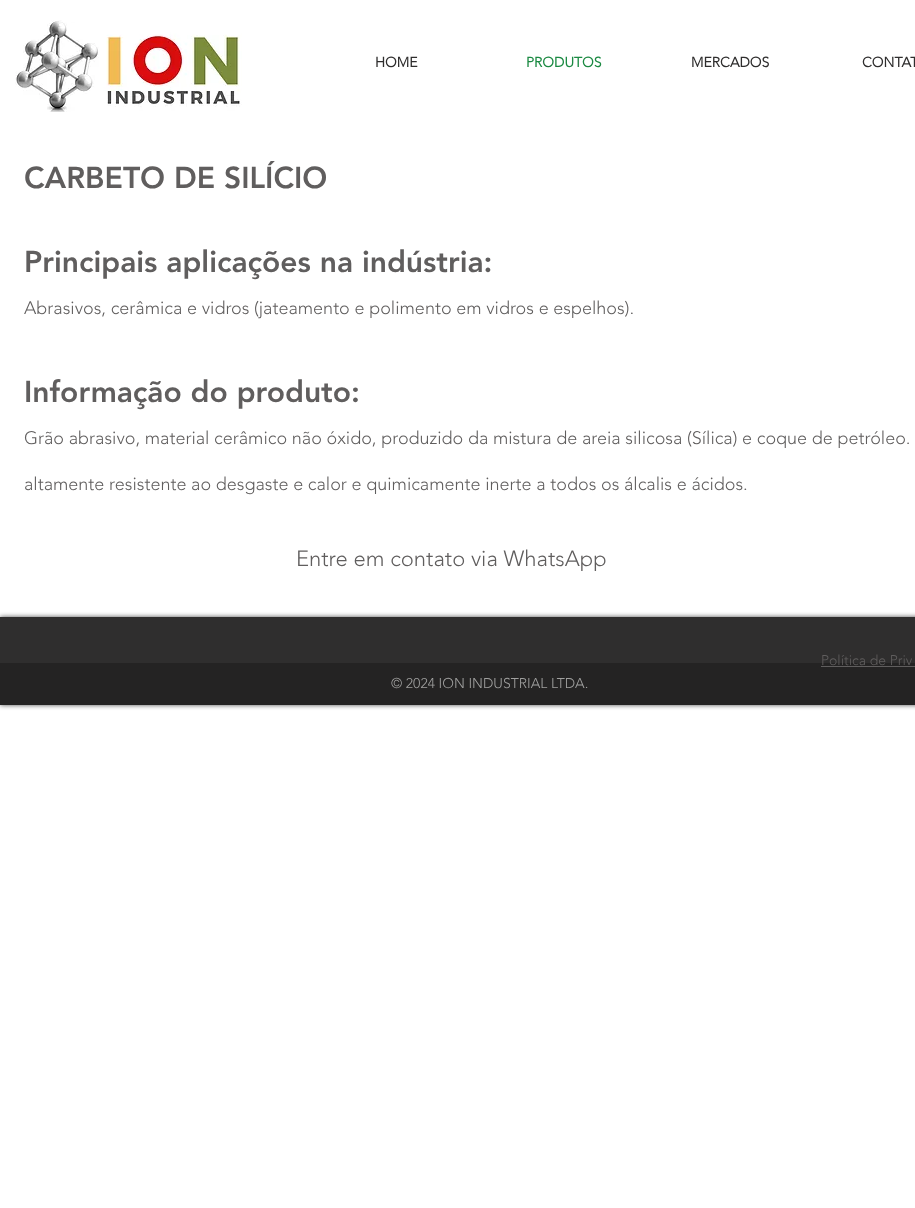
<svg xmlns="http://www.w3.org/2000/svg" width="915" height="1208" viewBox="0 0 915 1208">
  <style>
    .t1 { font: bold 14px 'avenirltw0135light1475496'; fill: #2f2e2e; }
    .t2 { font: bold 14px 'avenirltw0135light1475496'; fill: #1c8a43; }
    .t3 { font: 900 30px 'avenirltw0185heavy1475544'; fill: #605e5e; }
    .t4 { font: 300 18px 'avenirltw0135light1475496'; fill: #605e5e; }
    .t5 { font: 300 22px 'avenirltw0135light1475496'; fill: #605e5e; }
    .t6 { font: 300 14px 'avenirltw0135light1475496'; fill: #605e5e; }
    .t7 { font: 300 14px 'avenirltw0135light1475496'; fill: #a0a09f; }
  </style>
  <rect width="100%" height="100%" fill="#fff"/>
  <image x="15" y="20" width="227" height="92" href="images/1.png"/>
  <text x="375" y="67" class="t1">HOME</text>
  <text x="526" y="67" class="t2">PRODUTOS</text>
  <text x="691" y="67" class="t1">MERCADOS</text>
  <text x="862" y="67" class="t1">CONTAT</text>
  <text x="24" y="188" class="t3">CARBETO DE SILÍCIO</text>
  <text x="24" y="272" class="t3">Principais aplicações na indústria:</text>
  <text x="24" y="314" class="t4">Abrasivos, cerâmica e vidros (jateamento e polimento em vidros e espelhos).</text>
  <text x="24" y="402" class="t3">Informação do produto:</text>
  <text x="24" y="444" class="t4">Grão abrasivo, material cerâmico não óxido, produzido da mistura de areia silicosa (Sílica) e coque de petróleo.</text>
  <text x="24" y="490" class="t4">altamente resistente ao desgaste e calor e quimicamente inerte a todos os álcalis e ácidos.</text>
  <text x="296" y="566" class="t5">Entre em contato via WhatsApp</text>
  <rect x="0" y="617" width="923" height="88" fill="#000000b3" filter="blur(2.5px)"/>
  <rect x="0" y="617" width="915" height="46" fill="#2f2e2e"/>
  <rect x="0" y="663" width="915" height="42" fill="#242323"/>
  <text x="821" y="665" class="t6">Política de Priv</text>
  <rect x="821" y="666" width="94" height="1" fill="#605e5e"/>
  <text x="391" y="688" class="t7">© 2024 ION INDUSTRIAL LTDA.</text>
</svg>
